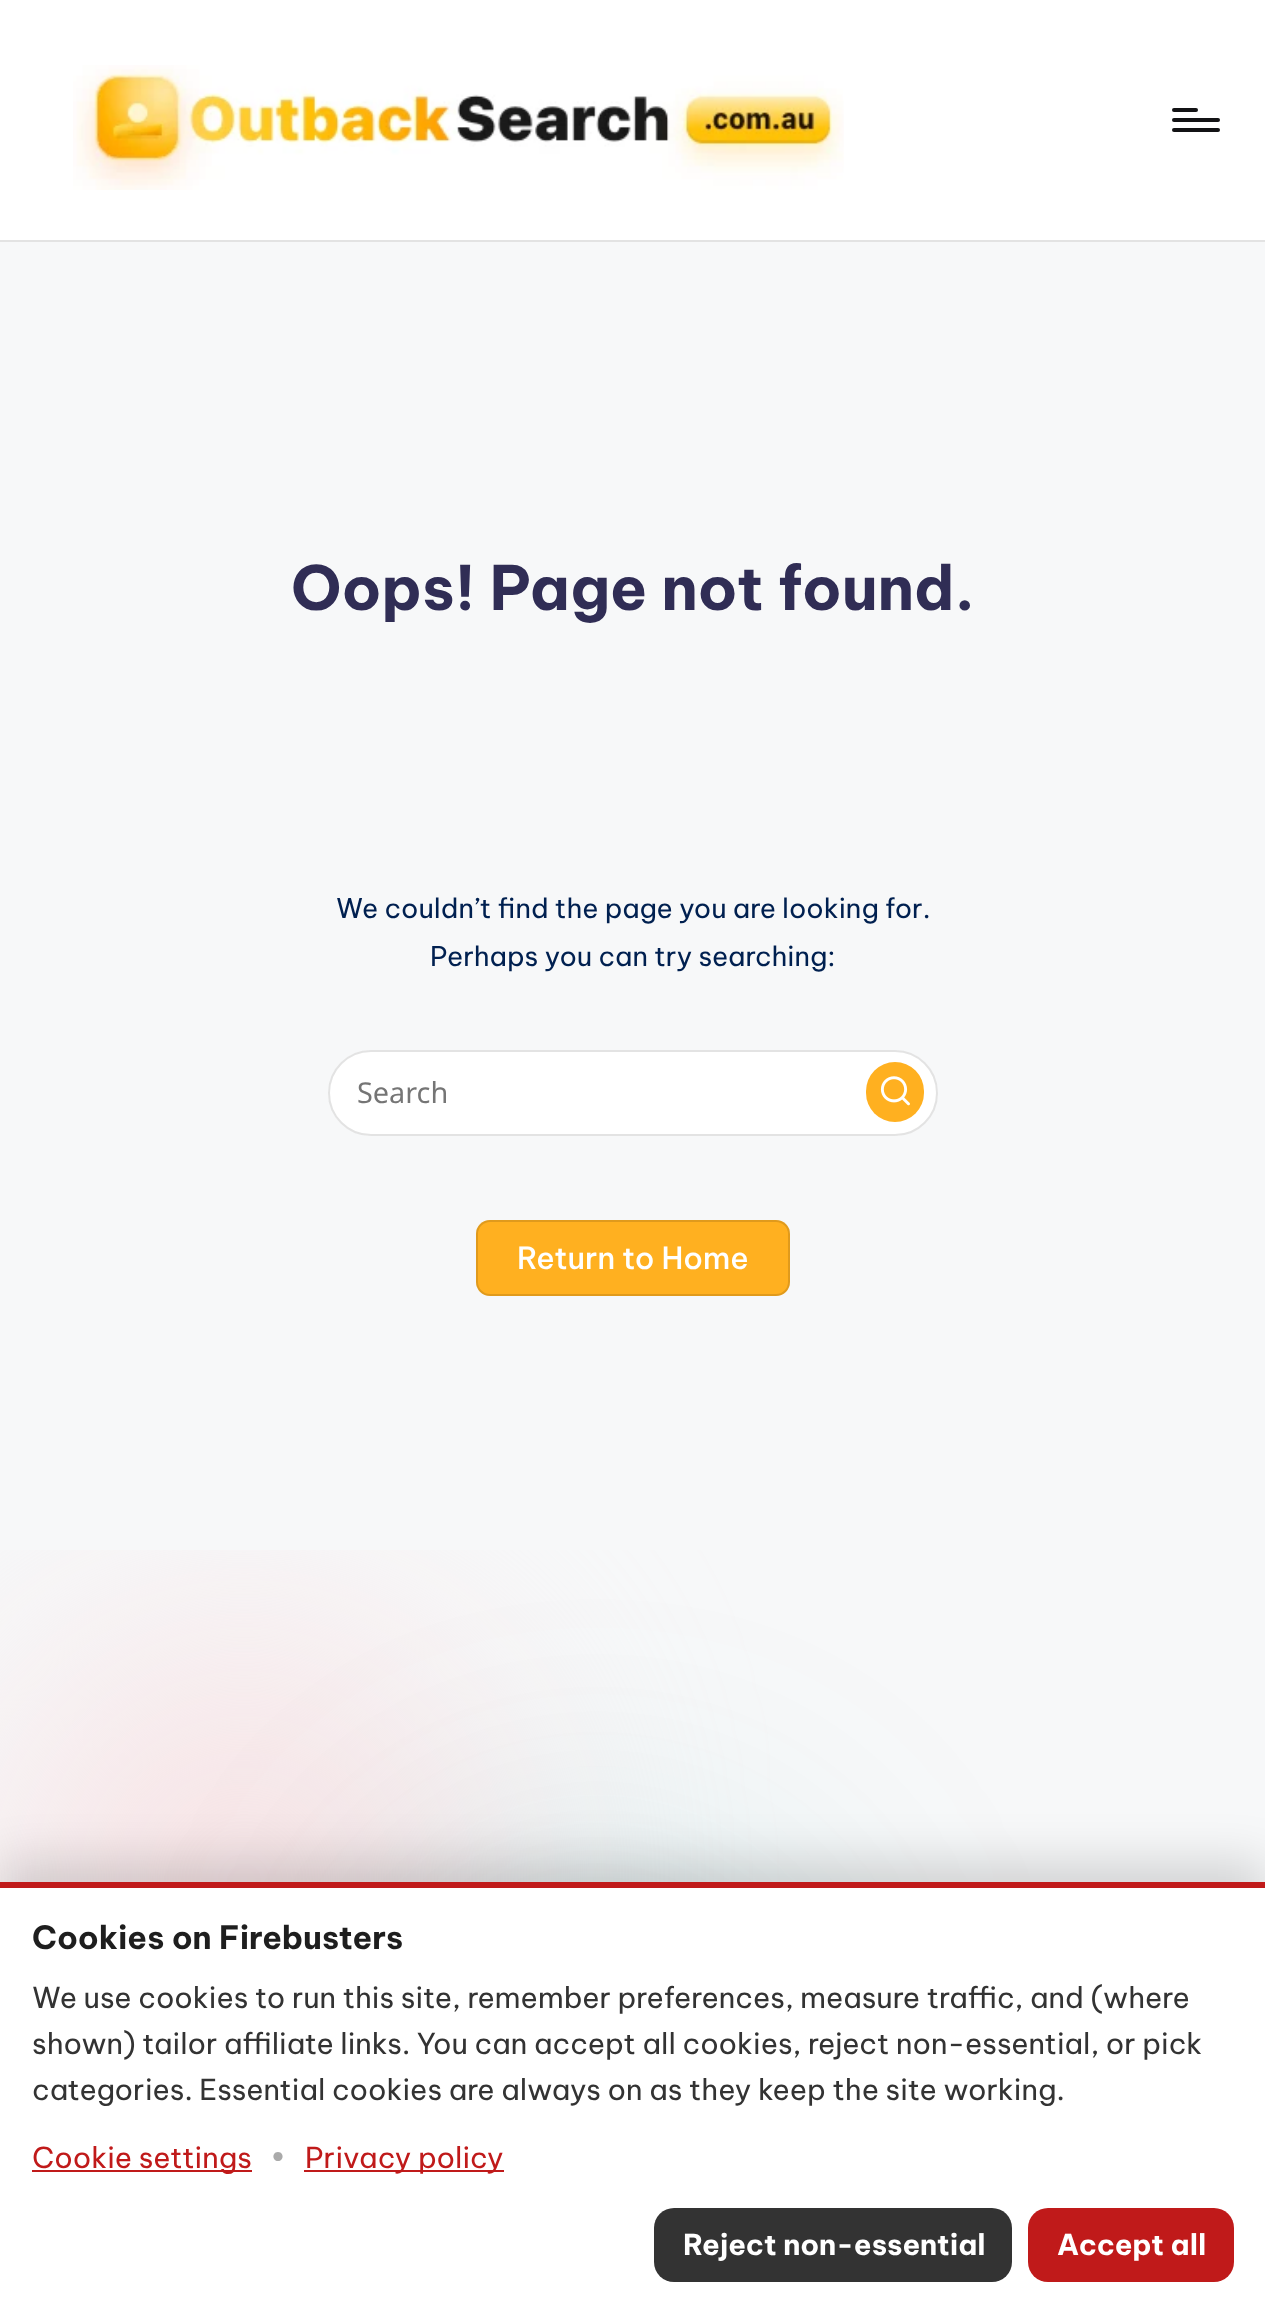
<svg xmlns="http://www.w3.org/2000/svg" width="1265" height="2309" viewBox="0 0 1265 2309">
  <style>
    .t1 { font: bold 61px Be Vietnam Pro; fill: #302d55; }
    .t2 { font: 27.1px Be Vietnam Pro; fill: #002050; }
    .t3 { font: 28.85px Noto Sans; fill: #757575; }
    .t4 { font: 500 30.5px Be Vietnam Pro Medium; fill: #fff; }
    .t5 { font: bold 32px Be Vietnam Pro; fill: #1e1e1e; }
    .t6 { font: 28.85px Be Vietnam Pro; fill: #333; }
    .t7 { font: 28.85px Be Vietnam Pro; fill: #c01a1a; }
    .t8 { font: 28.85px Be Vietnam Pro; fill: #aaa; }
    .t9 { font: bold 28.85px Be Vietnam Pro; fill: #fff; }
  </style>
  <defs>
    <clipPath id="clip1"><rect x="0" y="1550" width="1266" height="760"/></clipPath>
  </defs>
  <rect width="100%" height="100%" fill="#f7f8f9"/>
  <rect x="0" y="0" width="1265" height="240" fill="#fff"/>
  <rect x="0" y="240" width="1265" height="2" fill="#e3e3e3"/>
  <image x="73" y="65" width="771" height="125" href="images/1.png"/>
  <rect x="1172" y="118" width="48" height="4" rx="2" fill="#131315"/>
  <rect x="1172" y="108" width="26" height="4" rx="2" fill="#131315"/>
  <rect x="1172" y="128" width="48" height="4" rx="2" fill="#131315"/>
  <text x="291" y="610" class="t1">Oops! Page not found.</text>
  <text x="336" y="918" class="t2">We couldn’t find the page you are looking for.</text>
  <text x="430" y="966" class="t2">Perhaps you can try searching:</text>
  <rect x="328" y="1050" width="610" height="86" rx="43" fill="#fff"/>
  <rect x="329" y="1051" width="608" height="84" rx="42" fill="none" stroke="#b9b9b966" stroke-width="2"/>
  <text x="357" y="1103" class="t3">Search</text>
  <rect x="866" y="1062" width="58" height="60" rx="29" fill="#ffb020"/>
  <image x="880" y="1076" width="30" height="30" href="images/2.png"/>
  <g clip-path="url(#clip1)">
    <rect x="0" y="1636" width="488" height="488" rx="244" fill="#f7e3e5" filter="blur(128px)"/>
  </g>
  <rect x="476" y="1220" width="314" height="76" rx="14" fill="#ffb020"/>
  <rect x="477" y="1221" width="312" height="74" rx="13" fill="none" stroke="#0000001f" stroke-width="2"/>
  <text x="517" y="1269" class="t4">Return to Home</text>
  <rect x="352" y="1822" width="490" height="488" rx="244" fill="#04868b1a" filter="blur(128px)"/>
  <rect x="0" y="1862" width="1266" height="428" fill="#00000026" filter="blur(24px)"/>
  <rect x="0" y="1888" width="1265" height="421" fill="#fff"/>
  <rect x="0" y="1882" width="1265" height="6" fill="#c01a1a"/>
  <text x="32" y="1949" class="t5">Cookies on Firebusters</text>
  <text x="32" y="2008" class="t6">We use cookies to run this site, remember preferences, measure traffic, and (where</text>
  <text x="32" y="2054" class="t6">shown) tailor affiliate links. You can accept all cookies, reject non-essential, or pick</text>
  <text x="32" y="2100" class="t6">categories. Essential cookies are always on as they keep the site working.</text>
  <rect x="32" y="2170" width="220" height="2" fill="#c01a1a"/>
  <text x="32" y="2168" class="t7">Cookie settings</text>
  <text x="270" y="2168" class="t8">•</text>
  <rect x="304" y="2170" width="200" height="2" fill="#c01a1a"/>
  <text x="305" y="2168" class="t7">Privacy policy</text>
  <rect x="654" y="2208" width="358" height="74" rx="20" fill="#333"/>
  <text x="683" y="2255" class="t9">Reject non-essential</text>
  <rect x="1028" y="2208" width="206" height="74" rx="20" fill="#c01a1a"/>
  <text x="1057" y="2255" class="t9">Accept all</text>
</svg>
